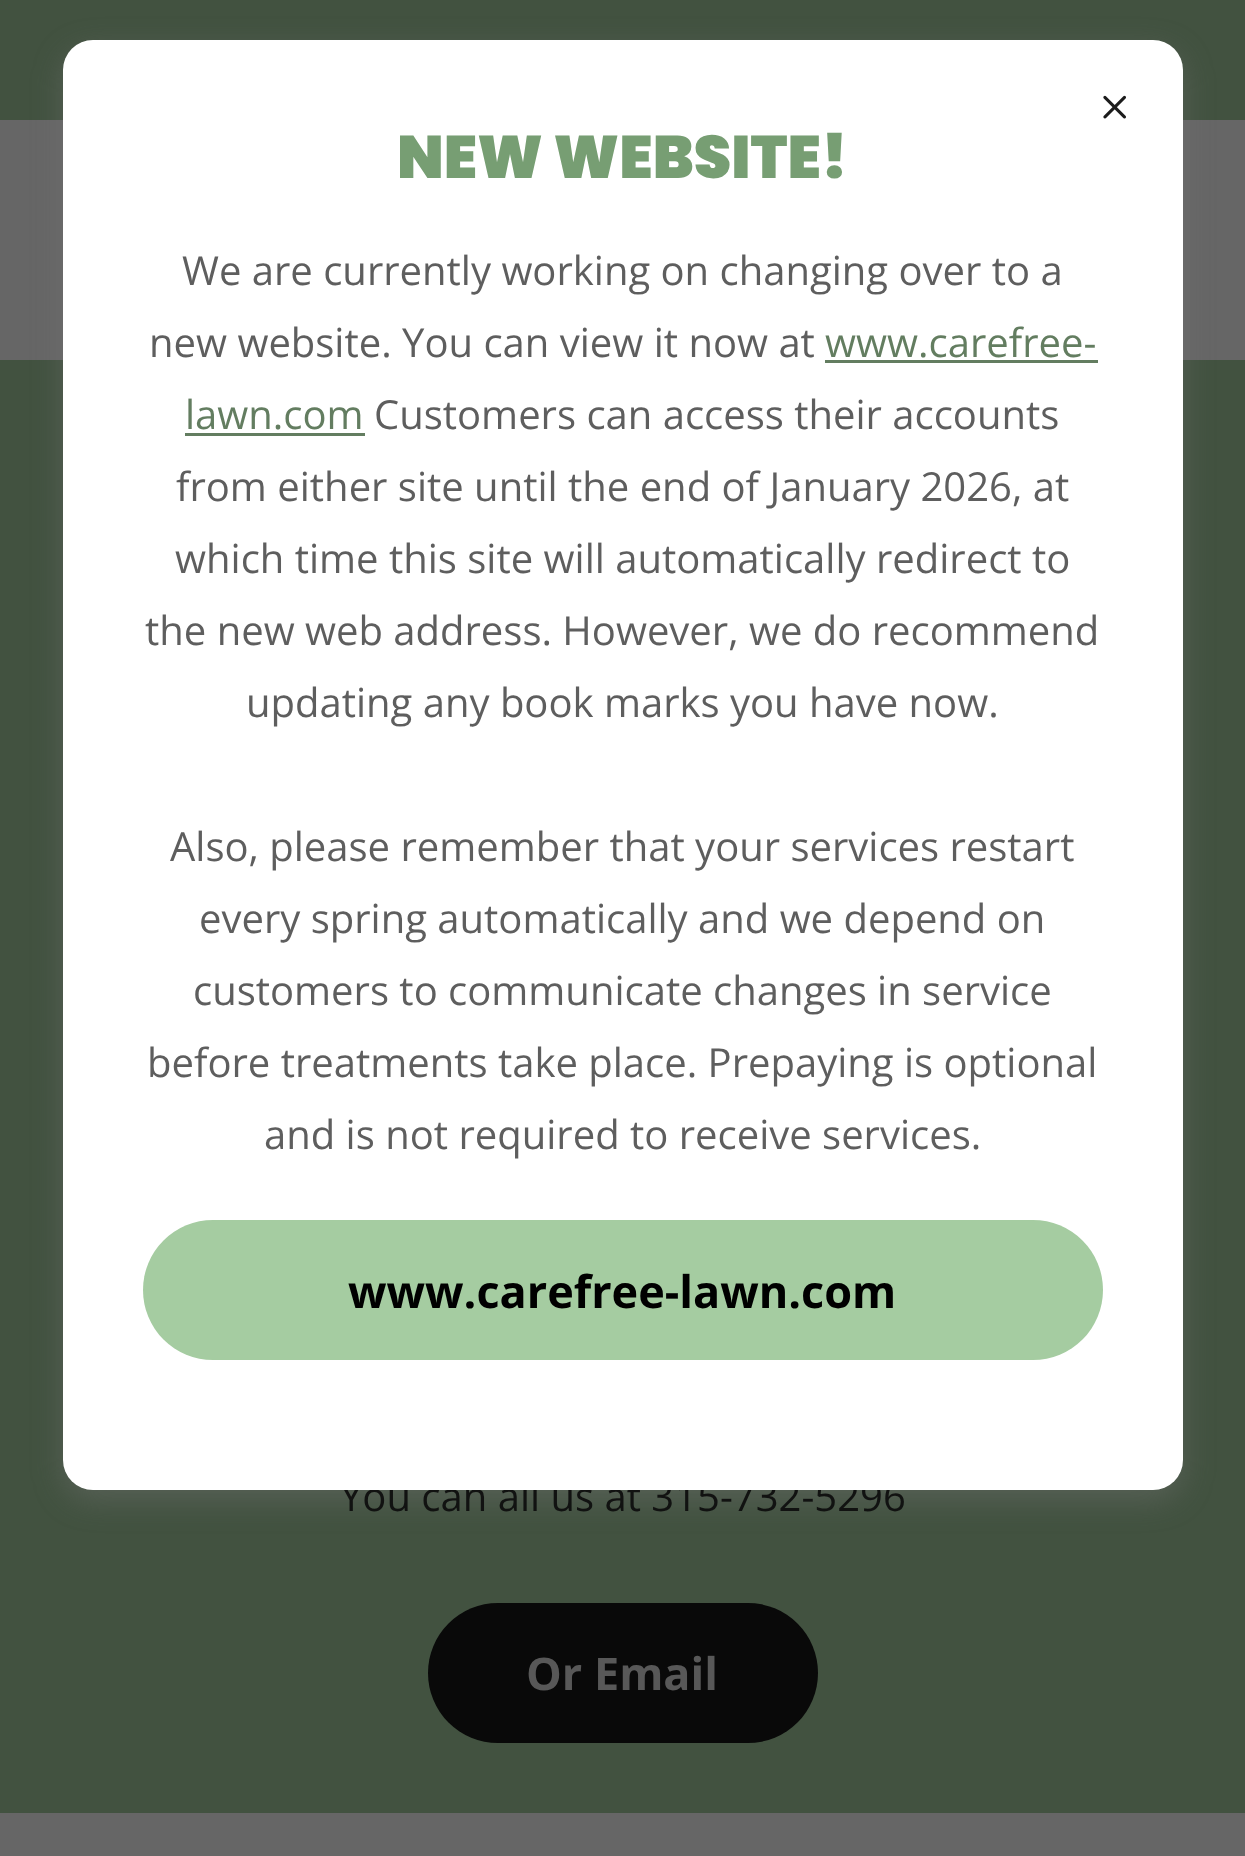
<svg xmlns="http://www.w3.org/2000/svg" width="1245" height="1856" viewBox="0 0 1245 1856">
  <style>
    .t1 { font: 40px Open Sans; fill: #111211; }
    .t2 { font: 900 60px Poppins; fill: #779e73; }
    .t3 { font: 40px Open Sans; fill: #5e5e5e; }
    .t4 { font: 40px Open Sans; fill: #637d60; }
    .t5 { font: bold 45px Open Sans; fill: #000; }
    .t6 { font: bold 45px Open Sans; fill: #585858; }
  </style>
  <rect width="100%" height="100%" fill="#666"/>
  <rect x="0" y="0" width="1245" height="120" fill="#425240"/>
  <rect x="0" y="360" width="1245" height="1453" fill="#425240"/>
  <rect x="63" y="50" width="1120" height="1450" rx="30" fill="#75757566" filter="blur(15px)"/>
  <text x="340" y="1511" class="t1">You can all us at 315-732-5296</text>
  <rect x="63" y="40" width="1120" height="1450" rx="30" fill="#fff"/>
  <image x="1103" y="95" width="23" height="24" href="images/1.png"/>
  <text x="397" y="178" class="t2">NEW WEBSITE!</text>
  <text x="182" y="285" class="t3">We are currently working on changing over to a</text>
  <text x="149" y="357" class="t3">new website. You can view it now at</text>
  <text x="825" y="357" class="t4">www.carefree-</text>
  <rect x="825" y="360" width="273" height="3" fill="#637d60"/>
  <text x="185" y="429" class="t4">lawn.com</text>
  <rect x="185" y="433" width="180" height="3" fill="#637d60"/>
  <text x="374" y="429" class="t3">Customers can access their accounts</text>
  <text x="176" y="501" class="t3">from either site until the end of January 2026, at</text>
  <text x="175" y="573" class="t3">which time this site will automatically redirect to</text>
  <text x="145" y="645" class="t3">the new web address. However, we do recommend</text>
  <text x="246" y="717" class="t3">updating any book marks you have now.</text>
  <text x="170" y="861" class="t3">Also, please remember that your services restart</text>
  <text x="199" y="933" class="t3">every spring automatically and we depend on</text>
  <text x="193" y="1005" class="t3">customers to communicate changes in service</text>
  <text x="147" y="1077" class="t3">before treatments take place. Prepaying is optional</text>
  <text x="264" y="1149" class="t3">and is not required to receive services.</text>
  <rect x="143" y="1220" width="960" height="140" rx="70" fill="#a5cca1"/>
  <text x="348" y="1308" class="t5">www.carefree-lawn.com</text>
  <rect x="428" y="1603" width="390" height="140" rx="70" fill="#090909"/>
  <text x="526" y="1690" class="t6">Or Email</text>
</svg>
